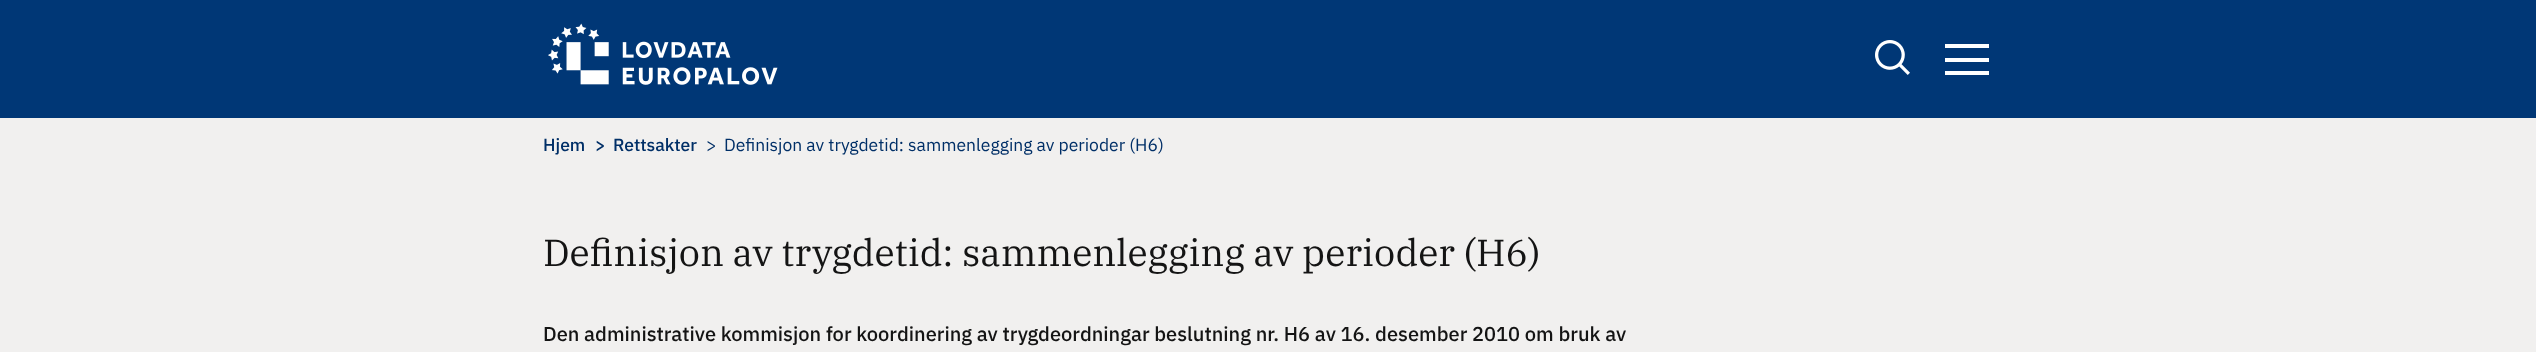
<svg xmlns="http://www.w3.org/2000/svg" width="2536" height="352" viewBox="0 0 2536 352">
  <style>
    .t1 { font: 500 17.5px IBM Plex Sans; fill: #002f67; }
    .t2 { font: 17.5px IBM Plex Sans; fill: #002f67; }
    .t3 { font: 37.5px IBM Plex Serif; fill: #141414; }
    .t4 { font: 500 20px IBM Plex Sans; fill: #141414; }
  </style>
  <rect width="100%" height="100%" fill="#f1f0ef"/>
  <rect x="0" y="0" width="2536" height="118" fill="#003776"/>
  <image x="548" y="23" width="230" height="62" href="images/1.png"/>
  <image x="1875" y="40" width="35" height="35" href="images/2.png"/>
  <rect x="1945" y="44" width="44" height="4" fill="#fff"/>
  <rect x="1945" y="58" width="44" height="4" fill="#fff"/>
  <rect x="1945" y="71" width="44" height="4" fill="#fff"/>
  <text x="543" y="151" class="t1">Hjem</text>
  <text x="595" y="151" class="t1">&gt;</text>
  <text x="613" y="151" class="t1">Rettsakter</text>
  <text x="706" y="151" class="t2">&gt;</text>
  <text x="724" y="151" class="t2">Definisjon av trygdetid: sammenlegging av perioder (H6)</text>
  <text x="543" y="266" class="t3">Definisjon av trygdetid: sammenlegging av perioder (H6)</text>
  <text x="543" y="341" class="t4">Den administrative kommisjon for koordinering av trygdeordningar beslutning nr. H6 av 16. desember 2010 om bruk av</text>
</svg>
